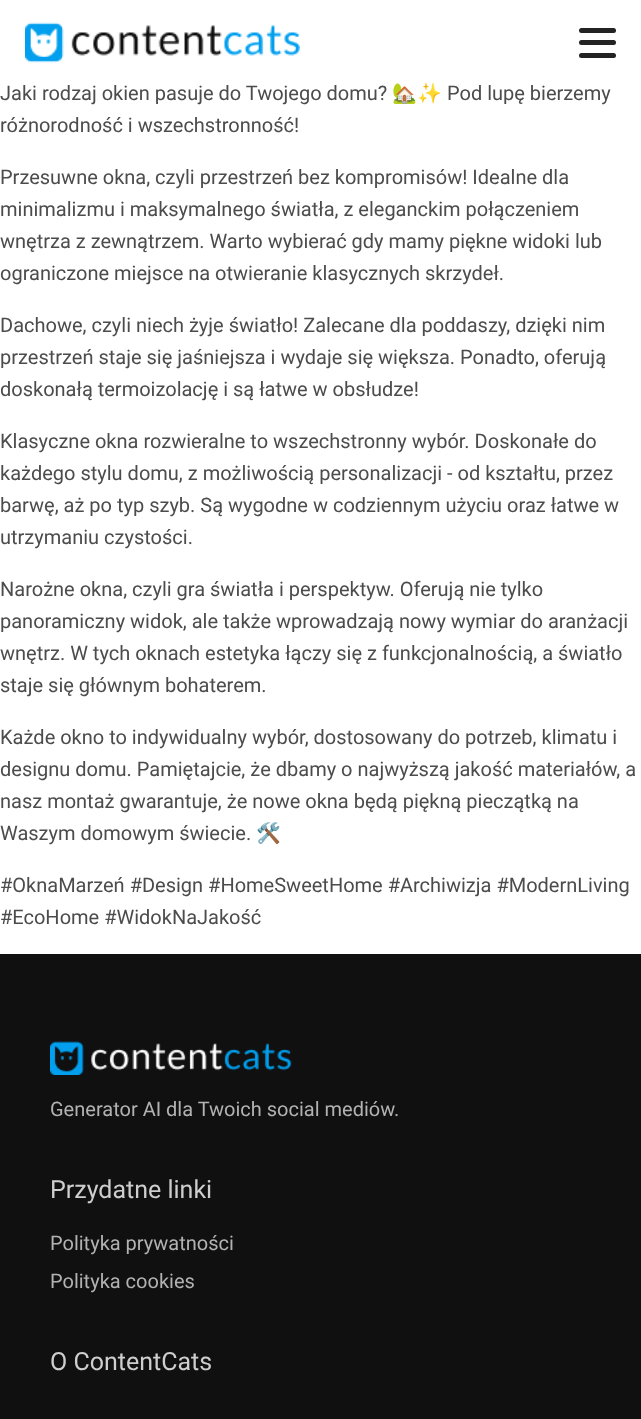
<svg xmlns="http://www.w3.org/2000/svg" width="641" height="1419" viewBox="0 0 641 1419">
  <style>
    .t1 { font: 20px Roboto; fill: #4c4c4c; }
    .t2 { font: 20px Noto Color Emoji; fill: #4c4c4c; }
    .t3 { font: 20px Roboto; fill: #b2b2b2; }
    .t4 { font: 25px Roboto; fill: #cecece; }
  </style>
  <rect width="100%" height="100%" fill="#fff"/>
  <image x="25" y="22" width="275" height="41" href="images/1.png"/>
  <rect x="579" y="28" width="37" height="5" rx="2.5" fill="#232323"/>
  <rect x="579" y="40" width="37" height="5" rx="2.5" fill="#232323"/>
  <rect x="579" y="53" width="37" height="5" rx="2.5" fill="#232323"/>
  <text x="0" y="100" class="t1">Jaki rodzaj okien pasuje do Twojego domu?</text>
  <text x="392" y="100" class="t2">🏡✨</text>
  <text x="447" y="100" class="t1">Pod lupę bierzemy</text>
  <text x="0" y="132" class="t1">różnorodność i wszechstronność!</text>
  <text x="0" y="184" class="t1">Przesuwne okna, czyli przestrzeń bez kompromisów! Idealne dla</text>
  <text x="0" y="216" class="t1">minimalizmu i maksymalnego światła, z eleganckim połączeniem</text>
  <text x="0" y="248" class="t1">wnętrza z zewnątrzem. Warto wybierać gdy mamy piękne widoki lub</text>
  <text x="0" y="280" class="t1">ograniczone miejsce na otwieranie klasycznych skrzydeł.</text>
  <text x="0" y="332" class="t1">Dachowe, czyli niech żyje światło! Zalecane dla poddaszy, dzięki nim</text>
  <text x="0" y="364" class="t1">przestrzeń staje się jaśniejsza i wydaje się większa. Ponadto, oferują</text>
  <text x="0" y="396" class="t1">doskonałą termoizolację i są łatwe w obsłudze!</text>
  <text x="0" y="448" class="t1">Klasyczne okna rozwieralne to wszechstronny wybór. Doskonałe do</text>
  <text x="0" y="480" class="t1">każdego stylu domu, z możliwością personalizacji - od kształtu, przez</text>
  <text x="0" y="512" class="t1">barwę, aż po typ szyb. Są wygodne w codziennym użyciu oraz łatwe w</text>
  <text x="0" y="544" class="t1">utrzymaniu czystości.</text>
  <text x="0" y="596" class="t1">Narożne okna, czyli gra światła i perspektyw. Oferują nie tylko</text>
  <text x="0" y="628" class="t1">panoramiczny widok, ale także wprowadzają nowy wymiar do aranżacji</text>
  <text x="0" y="660" class="t1">wnętrz. W tych oknach estetyka łączy się z funkcjonalnością, a światło</text>
  <text x="0" y="692" class="t1">staje się głównym bohaterem.</text>
  <text x="0" y="744" class="t1">Każde okno to indywidualny wybór, dostosowany do potrzeb, klimatu i</text>
  <text x="0" y="776" class="t1">designu domu. Pamiętajcie, że dbamy o najwyższą jakość materiałów, a</text>
  <text x="0" y="808" class="t1">nasz montaż gwarantuje, że nowe okna będą piękną pieczątką na</text>
  <text x="0" y="840" class="t1">Waszym domowym świecie.</text>
  <text x="256" y="840" class="t2">🛠️</text>
  <text x="0" y="892" class="t1">#OknaMarzeń #Design #HomeSweetHome #Archiwizja #ModernLiving</text>
  <text x="0" y="924" class="t1">#EcoHome #WidokNaJakość</text>
  <rect x="0" y="954" width="641" height="465" fill="#101010"/>
  <image x="50" y="1041" width="242" height="34" href="images/2.png"/>
  <text x="50" y="1116" class="t3">Generator AI dla Twoich social mediów.</text>
  <text x="50" y="1198" class="t4">Przydatne linki</text>
  <text x="50" y="1250" class="t3">Polityka prywatności</text>
  <text x="50" y="1288" class="t3">Polityka cookies</text>
  <text x="50" y="1370" class="t4">O ContentCats</text>
</svg>
